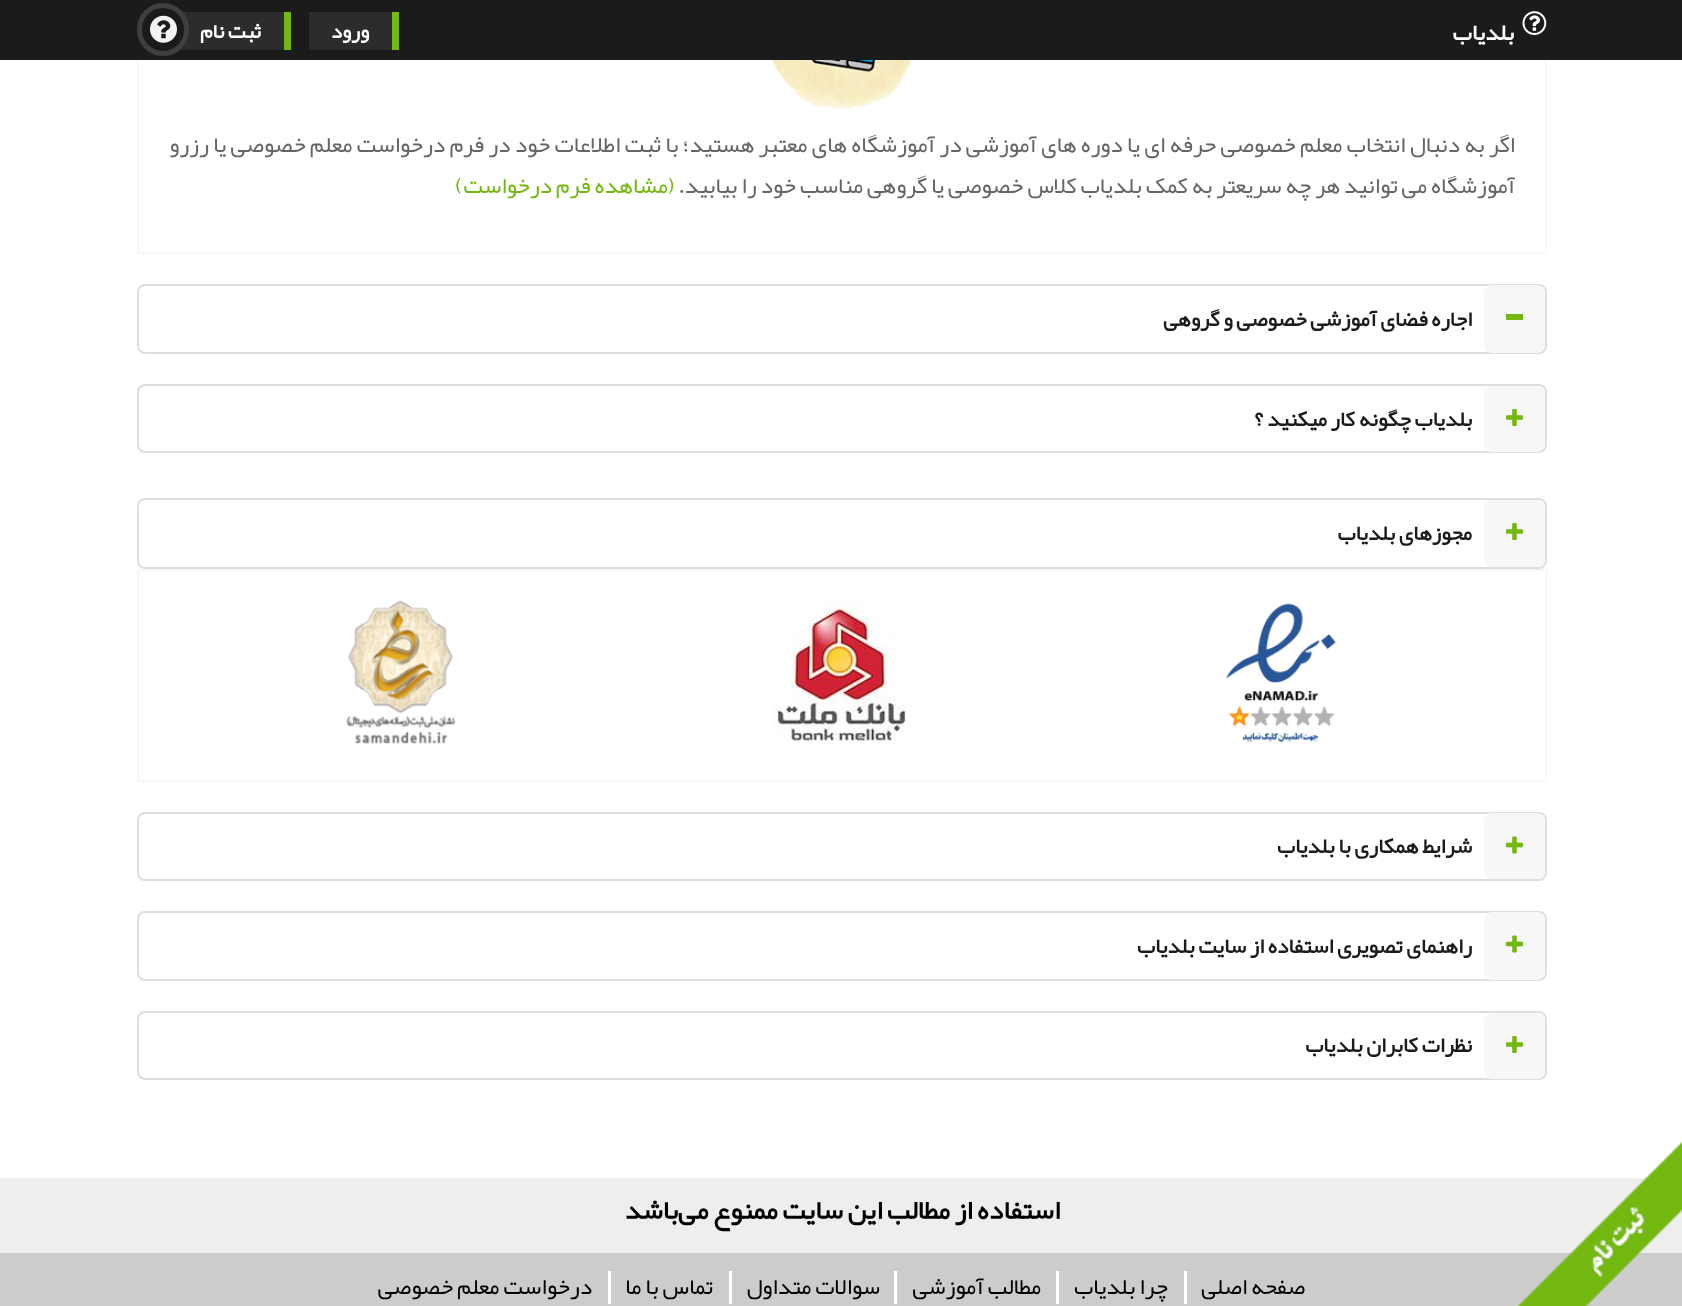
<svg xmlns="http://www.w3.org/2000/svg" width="1682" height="1306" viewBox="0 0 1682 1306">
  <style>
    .t1 { font: bold 23.1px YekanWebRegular; direction: rtl; fill: #fff; }
    .t2 { font: bold 21px YekanWebRegular; direction: rtl; fill: #fff; }
    .t3 { font: 23.1px YekanWebRegular; direction: rtl; fill: #656565; }
    .t4 { font: 23.1px YekanWebRegular; direction: rtl; fill: #73b711; }
    .t5 { font: bold 21.6px YekanWebRegular; direction: rtl; fill: #1b1b1b; }
    .t6 { font: bold 27.25px YekanWebRegular; direction: rtl; fill: #000; }
    .t7 { font: 23.1px YekanWebRegular; direction: rtl; fill: #000; }
  </style>
  <rect width="100%" height="100%" fill="#fff"/>
  <rect x="138" y="-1" width="1408" height="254" fill="none" stroke="#f7f7f7" stroke-width="2"/>
  <rect x="0" y="0" width="1682" height="60" fill="#1b1b1b"/>
  <image x="1522" y="11" width="25" height="24" href="images/1.png"/>
  <text x="1514" y="40" class="t1">بلدیاب</text>
  <rect x="309" y="12" width="83" height="38" fill="#2c2c2c"/>
  <rect x="392" y="12" width="7" height="38" fill="#73b711"/>
  <text x="369" y="38" class="t2">ورود</text>
  <rect x="179" y="12" width="105" height="38" fill="#2c2c2c"/>
  <rect x="284" y="12" width="7" height="38" fill="#73b711"/>
  <text x="261" y="38" class="t2">ثبت نام</text>
  <rect x="139.5" y="5.5" width="47" height="48" rx="23.5" fill="#1b1b1b" stroke="#403f3f" stroke-width="5"/>
  <image x="150" y="15" width="27" height="28" href="images/2.png"/>
  <image x="771" y="60" width="142" height="49" href="images/3.png"/>
  <text x="1515" y="152" word-spacing="0.3" class="t3">اگر به دنبال انتخاب معلم خصوصی حرفه ای یا دوره های آموزشی در آموزشگاه های معتبر هستید؛ با ثبت اطلاعات خود در فرم درخواست معلم خصوصی یا رزرو</text>
  <text x="1515" y="193" class="t3">آموزشگاه می توانید هر چه سریعتر به کمک بلدیاب کلاس خصوصی یا گروهی مناسب خود را بیابید.</text>
  <text x="675" y="193" class="t4">(مشاهده فرم درخواست)</text>
  <rect x="138" y="285" width="1408" height="68" rx="7" fill="none" stroke="#dedede" stroke-width="2"/>
  <rect x="1484" y="285" width="61" height="68" rx="8" fill="#f7f7f7"/>
  <rect x="1506" y="314" width="17" height="6" fill="#73b711"/>
  <text x="1472" y="326" class="t5">اجاره فضای آموزشی خصوصی و گروهی</text>
  <rect x="138" y="385" width="1408" height="67" rx="7" fill="none" stroke="#dedede" stroke-width="2"/>
  <rect x="1484" y="386" width="61" height="66" rx="8" fill="#f7f7f7"/>
  <image x="1506" y="409" width="17" height="17" href="images/4.png"/>
  <text x="1472" y="426" class="t5">‌بلدیاب چگونه کار میکنید ؟</text>
  <rect x="138" y="499" width="1408" height="69" rx="7" fill="none" stroke="#dedede" stroke-width="2"/>
  <rect x="1484" y="500" width="61" height="67" rx="8" fill="#f7f7f7"/>
  <image x="1506" y="523" width="17" height="17" href="images/4.png"/>
  <text x="1472" y="540" class="t5">مجوزهای بلدیاب</text>
  <rect x="138" y="570" width="1408" height="211" fill="none" stroke="#f7f7f7" stroke-width="2"/>
  <image x="1226" y="603" width="110" height="139" href="images/5.png"/>
  <image x="772" y="599" width="134" height="142" href="images/6.png"/>
  <image x="346" y="600" width="110" height="144" href="images/7.png"/>
  <rect x="138" y="813" width="1408" height="67" rx="7" fill="none" stroke="#dedede" stroke-width="2"/>
  <rect x="1484" y="813" width="61" height="66" rx="8" fill="#f7f7f7"/>
  <image x="1506" y="836" width="17" height="18" href="images/8.png"/>
  <text x="1472" y="853" class="t5">‌شرایط همکاری با بلدیاب</text>
  <rect x="138" y="912" width="1408" height="68" rx="7" fill="none" stroke="#dedede" stroke-width="2"/>
  <rect x="1484" y="912" width="61" height="68" rx="8" fill="#f7f7f7"/>
  <image x="1506" y="935" width="17" height="18" href="images/8.png"/>
  <text x="1472" y="953" class="t5">راهنمای تصویری استفاده از سایت بلدیاب</text>
  <rect x="138" y="1012" width="1408" height="67" rx="7" fill="none" stroke="#dedede" stroke-width="2"/>
  <rect x="1484" y="1013" width="61" height="66" rx="8" fill="#f7f7f7"/>
  <image x="1506" y="1036" width="17" height="17" href="images/4.png"/>
  <text x="1472" y="1052" class="t5">نظرات کابران بلدیاب</text>
  <rect x="0" y="1178" width="1682" height="75" fill="#eee"/>
  <rect x="0" y="1253" width="1682" height="53" fill="#ccc"/>
  <image x="1517" y="1141" width="165" height="165" href="images/9.png"/>
  <text x="1060" y="1219" class="t6">استفاده از مطالب این سایت ممنوع می‌باشد</text>
  <rect x="1184" y="1271" width="3" height="33" fill="#fff"/>
  <text x="1305" y="1294" class="t7">صفحه اصلی</text>
  <rect x="1056" y="1271" width="3" height="33" fill="#fff"/>
  <text x="1168" y="1294" class="t7">چرا بلدیاب</text>
  <rect x="894" y="1271" width="3" height="33" fill="#fff"/>
  <text x="1041" y="1294" class="t7">مطالب آموزشی</text>
  <rect x="729" y="1271" width="3" height="33" fill="#fff"/>
  <text x="880" y="1294" class="t7">سوالات متداول</text>
  <rect x="608" y="1271" width="3" height="33" fill="#fff"/>
  <text x="713" y="1294" class="t7">تماس با ما</text>
  <text x="592" y="1294" class="t7">درخواست معلم خصوصی</text>
</svg>
